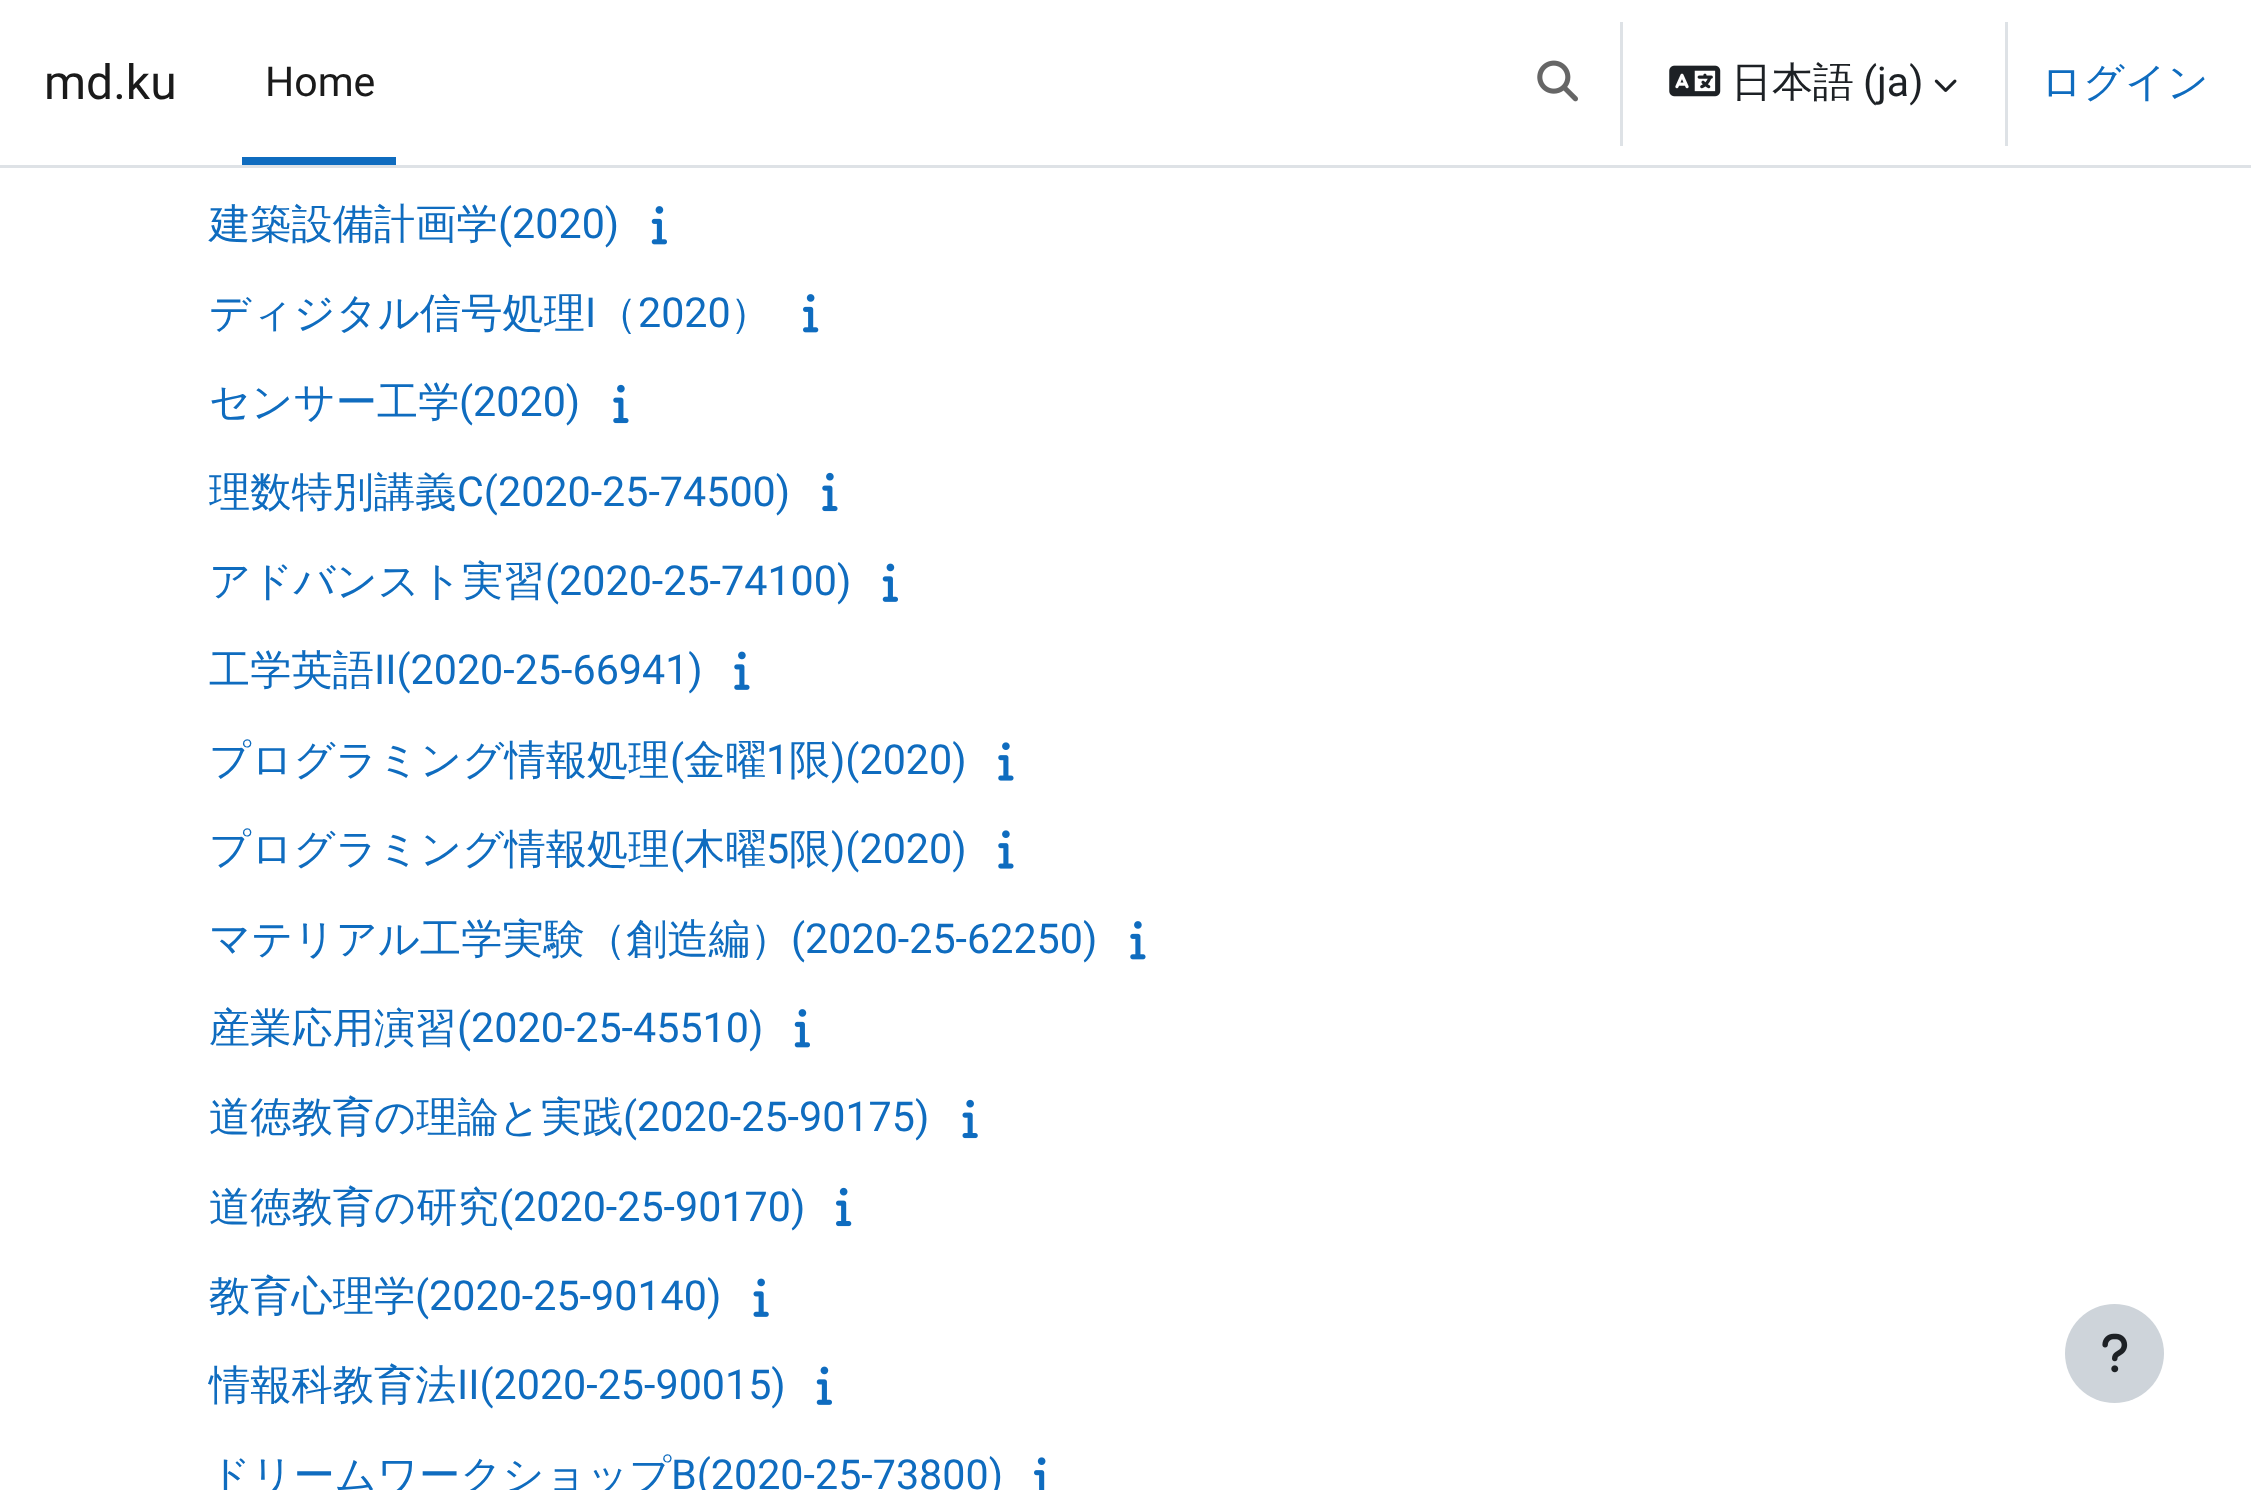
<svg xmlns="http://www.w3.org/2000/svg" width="2251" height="1490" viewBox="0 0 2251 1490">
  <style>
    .t1 { font: 48px Roboto; fill: #1a1a1a; }
    .t2 { font: 41px Roboto; fill: #1a1a1a; }
    .t3 { font: 500 41px WenQuanYi Zen Hei; fill: #1d2125; }
    .t4 { font: 41px Roboto; fill: #1d2125; }
    .t5 { font: 500 41px WenQuanYi Zen Hei; fill: #0f6cbf; }
    .t6 { font: 500 41.25px WenQuanYi Zen Hei; fill: #0f6cbf; }
    .t7 { font: 41.25px Roboto; fill: #0f6cbf; }
  </style>
  <rect width="100%" height="100%" fill="#fff"/>
  <rect x="0" y="165" width="2251" height="3" fill="#dee2e6"/>
  <text x="44" y="99" class="t1">md.ku</text>
  <rect x="242" y="157" width="154" height="8" fill="#0f6cbf"/>
  <text x="265" y="96" class="t2">Home</text>
  <image x="1537" y="60" width="41" height="42" href="images/1.png"/>
  <rect x="1620" y="22" width="3" height="124" fill="#dee2e6"/>
  <image x="1669" y="65" width="52" height="32" href="images/2.png"/>
  <text x="1731" y="96" class="t3">日本語</text>
  <text x="1863" y="96" class="t4">(ja)</text>
  <image x="1934" y="79" width="23" height="13" href="images/3.png"/>
  <rect x="2005" y="22" width="3" height="124" fill="#dee2e6"/>
  <text x="2041" y="96" class="t5">ログイン</text>
  <text x="209" y="238" class="t6">建築設備計画学</text>
  <text x="498" y="238" class="t7">(2020)</text>
  <image x="651" y="206" width="16" height="39" href="images/4.png"/>
  <text x="209" y="327" class="t6">ディジタル信号処理</text>
  <text x="585" y="327" class="t7">I</text>
  <text x="596" y="327" class="t6">（</text>
  <text x="638" y="327" class="t7">2020</text>
  <text x="730" y="327" class="t6">）</text>
  <image x="803" y="294" width="16" height="39" href="images/5.png"/>
  <text x="209" y="416" class="t6">センサー工学</text>
  <text x="459" y="416" class="t7">(2020)</text>
  <image x="613" y="384" width="16" height="40" href="images/6.png"/>
  <text x="209" y="506" class="t6">理数特別講義</text>
  <text x="457" y="506" class="t7">C(2020-25-74500)</text>
  <image x="822" y="472" width="16" height="40" href="images/6.png"/>
  <text x="209" y="595" class="t6">アドバンスト実習</text>
  <text x="545" y="595" class="t7">(2020-25-74100)</text>
  <image x="882" y="563" width="16" height="39" href="images/7.png"/>
  <text x="209" y="684" class="t6">工学英語</text>
  <text x="374" y="684" class="t7">II(2020-25-66941)</text>
  <image x="734" y="651" width="16" height="39" href="images/8.png"/>
  <text x="209" y="774" class="t6">プログラミング情報処理</text>
  <text x="670" y="774" class="t7">(</text>
  <text x="684" y="774" class="t6">金曜</text>
  <text x="766" y="774" class="t7">1</text>
  <text x="789" y="774" class="t6">限</text>
  <text x="831" y="774" class="t7">)(2020)</text>
  <image x="998" y="742" width="16" height="39" href="images/9.png"/>
  <text x="209" y="863" class="t6">プログラミング情報処理</text>
  <text x="670" y="863" class="t7">(</text>
  <text x="684" y="863" class="t6">木曜</text>
  <text x="766" y="863" class="t7">5</text>
  <text x="789" y="863" class="t6">限</text>
  <text x="831" y="863" class="t7">)(2020)</text>
  <image x="998" y="830" width="16" height="39" href="images/9.png"/>
  <text x="209" y="953" class="t6">マテリアル工学実験（創造編）</text>
  <text x="791" y="953" class="t7">(2020-25-62250)</text>
  <image x="1130" y="921" width="16" height="39" href="images/10.png"/>
  <text x="209" y="1042" class="t6">産業応用演習</text>
  <text x="457" y="1042" class="t7">(2020-25-45510)</text>
  <image x="794" y="1009" width="16" height="39" href="images/4.png"/>
  <text x="209" y="1131" class="t6">道徳教育の理論と実践</text>
  <text x="623" y="1131" class="t7">(2020-25-90175)</text>
  <image x="962" y="1099" width="16" height="40" href="images/11.png"/>
  <text x="209" y="1221" class="t6">道徳教育の研究</text>
  <text x="499" y="1221" class="t7">(2020-25-90170)</text>
  <image x="836" y="1187" width="16" height="40" href="images/12.png"/>
  <text x="209" y="1310" class="t6">教育心理学</text>
  <text x="415" y="1310" class="t7">(2020-25-90140)</text>
  <image x="753" y="1278" width="16" height="39" href="images/13.png"/>
  <text x="209" y="1399" class="t6">情報科教育法</text>
  <text x="457" y="1399" class="t7">II(2020-25-90015)</text>
  <image x="816" y="1366" width="16" height="39" href="images/7.png"/>
  <text x="209" y="1489" class="t6">ドリームワークショップ</text>
  <text x="671" y="1489" class="t7">B(2020-25-73800)</text>
  <image x="1034" y="1457" width="12" height="33" href="images/14.png"/>
  <circle cx="2114.5" cy="1353.5" r="49.5" fill="#ced4da"/>
  <image x="2102" y="1333" width="26" height="40" href="images/15.png"/>
</svg>
